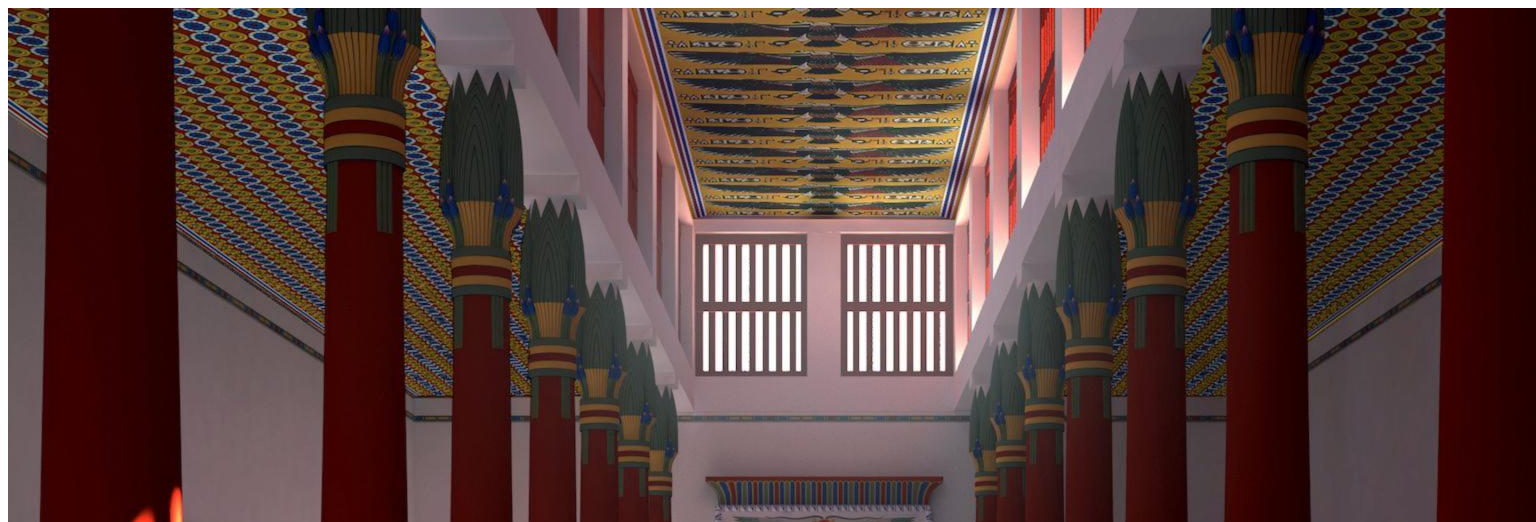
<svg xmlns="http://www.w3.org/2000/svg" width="1536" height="522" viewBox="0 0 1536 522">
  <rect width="100%" height="100%" fill="#fff"/>
  <image x="8" y="8" width="1528" height="514" href="images/1.png"/>
</svg>
